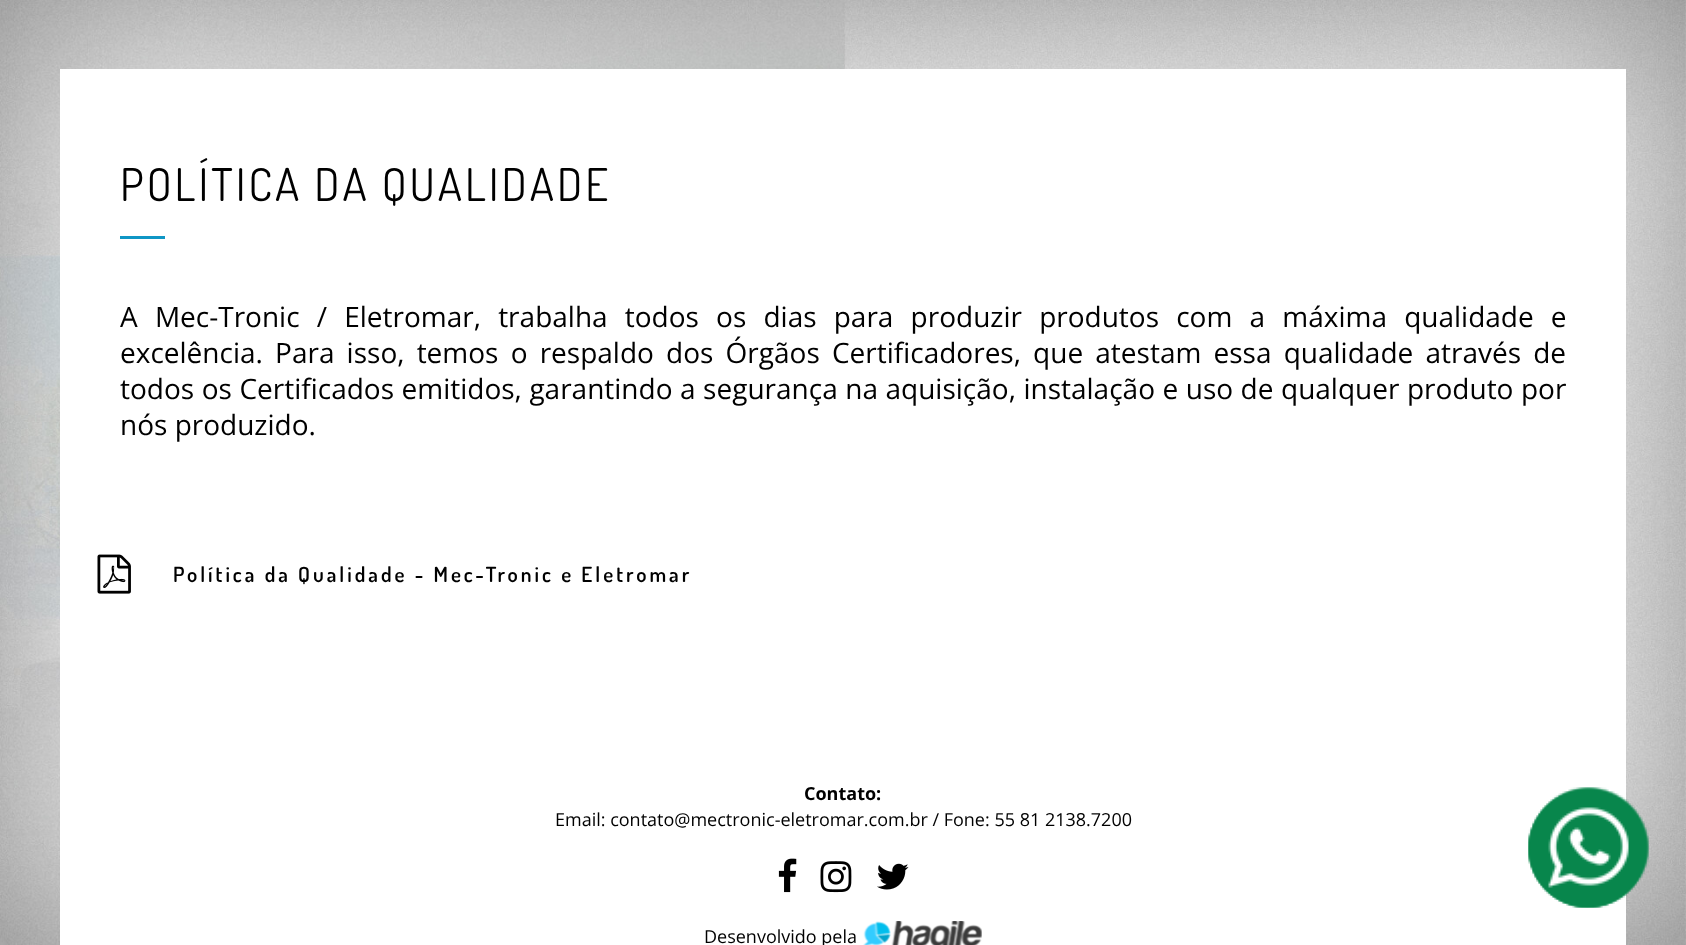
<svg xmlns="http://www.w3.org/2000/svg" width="1686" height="945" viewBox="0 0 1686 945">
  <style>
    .t1 { font: 45px Dosis; letter-spacing: 3px; fill: #000; }
    .t2 { font: 28px Open Sans; fill: #000; }
    .t3 { font: 600 21px Dosis; letter-spacing: 3px; fill: #000; }
    .t4 { font: bold 18px Open Sans; fill: #000; }
    .t5 { font: 18px Open Sans; fill: #000; }
  </style>
  <rect width="100%" height="100%" fill="#fff"/>
  <image x="0" y="0" width="1686" height="945" href="images/1.png"/>
  <rect x="60" y="69" width="1566" height="876" fill="#fff"/>
  <text x="120" y="201" class="t1">POLÍTICA DA QUALIDADE</text>
  <rect x="120" y="236" width="45" height="3" fill="#0f96c5"/>
  <text x="120" y="327" word-spacing="9.9" class="t2">A Mec-Tronic / Eletromar, trabalha todos os dias para produzir produtos com a máxima qualidade e</text>
  <text x="120" y="363" word-spacing="4.9" class="t2">excelência. Para isso, temos o respaldo dos Órgãos Certificadores, que atestam essa qualidade através de</text>
  <text x="120" y="399" word-spacing="0.25" class="t2">todos os Certificados emitidos, garantindo a segurança na aquisição, instalação e uso de qualquer produto por</text>
  <text x="120" y="435" class="t2">nós produzido.</text>
  <image x="97" y="554" width="34" height="40" href="images/2.png"/>
  <text x="173" y="582" class="t3">Política da Qualidade - Mec-Tronic e Eletromar</text>
  <text x="804" y="800" class="t4">Contato:</text>
  <text x="555" y="826" class="t5">Email: contato@mectronic-eletromar.com.br / Fone: 55 81 2138.7200</text>
  <image x="778" y="858" width="19" height="35" href="images/3.png"/>
  <image x="820" y="861" width="32" height="32" href="images/4.png"/>
  <image x="877" y="863" width="32" height="27" href="images/5.png"/>
  <text x="704" y="943" class="t5">Desenvolvido pela</text>
  <image x="863" y="921" width="119" height="24" href="images/6.png"/>
  <image x="1528" y="787" width="121" height="121" href="images/7.png"/>
  <image x="1528" y="787" width="121" height="121" href="images/8.png"/>
</svg>
